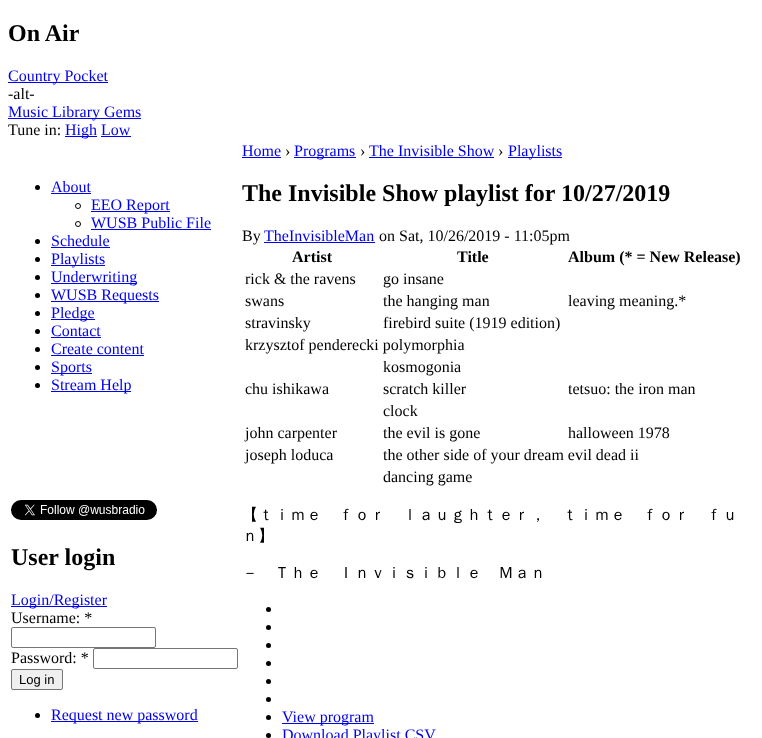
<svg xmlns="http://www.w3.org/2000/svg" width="762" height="738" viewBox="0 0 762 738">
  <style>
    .t1 { font: bold 24px Liberation Serif; fill: #000; }
    .t2 { font: 16px Liberation Serif; fill: #00e; }
    .t3 { font: 16px Liberation Serif; fill: #000; }
    .t4 { font: 13px Liberation Sans; fill: #000; }
    .t5 { font: bold 16px Liberation Serif; fill: #000; }
    .t6 { font: 500 16px WenQuanYi Zen Hei; fill: #000; }
  </style>
  <rect width="100%" height="100%" fill="#fff"/>
  <text x="8" y="41" class="t1">On Air</text>
  <rect x="8" y="82" width="100" height="1" fill="#00e"/>
  <text x="8" y="81" class="t2">Country Pocket</text>
  <text x="8" y="99" class="t3">-alt-</text>
  <rect x="8" y="118" width="133" height="1" fill="#00e"/>
  <text x="8" y="117" class="t2">Music Library Gems</text>
  <text x="8" y="135" class="t3">Tune in:</text>
  <rect x="65" y="136" width="32" height="1" fill="#00e"/>
  <text x="65" y="135" class="t2">High Low</text>
  <rect x="101" y="136" width="30" height="1" fill="#00e"/>
  <circle cx="37.5" cy="187.5" r="2.5" fill="#000"/>
  <text x="51" y="192" class="t2">About</text>
  <rect x="51" y="193" width="40" height="1" fill="#00e"/>
  <circle cx="78" cy="206" r="2.5" fill="none" stroke="#000"/>
  <rect x="91" y="211" width="79" height="1" fill="#00e"/>
  <text x="91" y="210" class="t2">EEO Report</text>
  <circle cx="78" cy="224" r="2.5" fill="none" stroke="#000"/>
  <text x="91" y="228" class="t2">WUSB Public File</text>
  <rect x="91" y="229" width="120" height="1" fill="#00e"/>
  <circle cx="37.5" cy="241.5" r="2.5" fill="#000"/>
  <text x="51" y="246" class="t2">Schedule</text>
  <rect x="51" y="247" width="59" height="1" fill="#00e"/>
  <circle cx="37.5" cy="259.5" r="2.5" fill="#000"/>
  <rect x="51" y="265" width="54" height="1" fill="#00e"/>
  <text x="51" y="264" class="t2">Playlists</text>
  <circle cx="37.5" cy="277.5" r="2.5" fill="#000"/>
  <rect x="51" y="283" width="86" height="1" fill="#00e"/>
  <text x="51" y="282" class="t2">Underwriting</text>
  <circle cx="37.5" cy="295.5" r="2.5" fill="#000"/>
  <rect x="51" y="301" width="108" height="1" fill="#00e"/>
  <text x="51" y="300" class="t2">WUSB Requests</text>
  <circle cx="37.5" cy="313.5" r="2.5" fill="#000"/>
  <rect x="51" y="319" width="44" height="1" fill="#00e"/>
  <text x="51" y="318" class="t2">Pledge</text>
  <circle cx="37.5" cy="331.5" r="2.5" fill="#000"/>
  <text x="51" y="336" class="t2">Contact</text>
  <rect x="51" y="337" width="50" height="1" fill="#00e"/>
  <circle cx="37.5" cy="349.5" r="2.5" fill="#000"/>
  <text x="51" y="354" class="t2">Create content</text>
  <rect x="51" y="355" width="93" height="1" fill="#00e"/>
  <circle cx="37.5" cy="367.5" r="2.5" fill="#000"/>
  <rect x="51" y="373" width="41" height="1" fill="#00e"/>
  <text x="51" y="372" class="t2">Sports</text>
  <circle cx="37.5" cy="385.5" r="2.5" fill="#000"/>
  <rect x="51" y="391" width="80" height="1" fill="#00e"/>
  <text x="51" y="390" class="t2">Stream Help</text>
  <image x="11" y="500" width="146" height="20" href="images/1.png"/>
  <text x="11" y="565" class="t1">User login</text>
  <rect x="11" y="606" width="96" height="1" fill="#00e"/>
  <text x="11" y="605" class="t2">Login/Register</text>
  <text x="11" y="623" class="t3">Username: *</text>
  <rect x="11.5" y="627.5" width="144" height="20" rx="1.5" fill="none" stroke="#767676"/>
  <text x="11" y="663" class="t3">Password: *</text>
  <rect x="93.5" y="648.5" width="144" height="20" rx="1.5" fill="none" stroke="#767676"/>
  <rect x="11.5" y="669.5" width="51" height="20" rx="1.5" fill="#efefef" stroke="#767676"/>
  <text x="19" y="684" class="t4">Log in</text>
  <circle cx="37.5" cy="715.5" r="2.5" fill="#000"/>
  <rect x="51" y="721" width="147" height="1" fill="#00e"/>
  <text x="51" y="720" class="t2">Request new password</text>
  <text x="242" y="156" class="t2">Home</text>
  <rect x="242" y="157" width="39" height="1" fill="#00e"/>
  <text x="285" y="156" class="t3">›</text>
  <rect x="294" y="157" width="62" height="1" fill="#00e"/>
  <text x="294" y="156" class="t2">Programs</text>
  <text x="360" y="156" class="t3">›</text>
  <text x="369" y="156" class="t2">The Invisible Show</text>
  <rect x="369" y="157" width="125" height="1" fill="#00e"/>
  <text x="498" y="156" class="t3">›</text>
  <rect x="508" y="157" width="54" height="1" fill="#00e"/>
  <text x="508" y="156" class="t2">Playlists</text>
  <text x="242" y="201" class="t1">The Invisible Show playlist for 10/27/2019</text>
  <text x="242" y="241" class="t3">By</text>
  <rect x="264" y="242" width="111" height="1" fill="#00e"/>
  <text x="264" y="241" class="t2">TheInvisibleMan</text>
  <text x="379" y="241" class="t3">on Sat, 10/26/2019 - 11:05pm</text>
  <text x="292" y="262" class="t5">Artist</text>
  <text x="457" y="262" class="t5">Title</text>
  <text x="568" y="262" class="t5">Album (* = New Release)</text>
  <text x="245" y="284" class="t3">rick &amp; the ravens</text>
  <text x="383" y="284" class="t3">go insane</text>
  <text x="245" y="306" class="t3">swans</text>
  <text x="383" y="306" class="t3">the hanging man</text>
  <text x="568" y="306" class="t3">leaving meaning.*</text>
  <text x="245" y="328" class="t3">stravinsky</text>
  <text x="383" y="328" class="t3">firebird suite (1919 edition)</text>
  <text x="245" y="350" class="t3">krzysztof penderecki polymorphia</text>
  <text x="383" y="372" class="t3">kosmogonia</text>
  <text x="245" y="394" class="t3">chu ishikawa</text>
  <text x="383" y="394" class="t3">scratch killer</text>
  <text x="568" y="394" class="t3">tetsuo: the iron man</text>
  <text x="383" y="416" class="t3">clock</text>
  <text x="245" y="438" class="t3">john carpenter</text>
  <text x="383" y="438" class="t3">the evil is gone</text>
  <text x="568" y="438" class="t3">halloween 1978</text>
  <text x="245" y="460" class="t3">joseph loduca</text>
  <text x="383" y="460" class="t3">the other side of your dream evil dead ii</text>
  <text x="383" y="482" class="t3">dancing game</text>
  <text x="242" y="520" class="t6">【ｔｉｍｅ　ｆｏｒ　ｌａｕｇｈｔｅｒ，　ｔｉｍｅ　ｆｏｒ　ｆｕ</text>
  <text x="242" y="541" class="t6">ｎ】</text>
  <text x="242" y="578" class="t6">－　Ｔｈｅ　Ｉｎｖｉｓｉｂｌｅ　Ｍａｎ</text>
  <circle cx="268.5" cy="609.5" r="2.5" fill="#000"/>
  <circle cx="268.5" cy="627.5" r="2.5" fill="#000"/>
  <circle cx="268.5" cy="645.5" r="2.5" fill="#000"/>
  <circle cx="268.5" cy="663.5" r="2.5" fill="#000"/>
  <circle cx="268.5" cy="681.5" r="2.5" fill="#000"/>
  <circle cx="268.5" cy="699.5" r="2.5" fill="#000"/>
  <circle cx="268.5" cy="717.5" r="2.5" fill="#000"/>
  <rect x="282" y="723" width="92" height="1" fill="#00e"/>
  <text x="282" y="722" class="t2">View program</text>
  <circle cx="268.5" cy="735.5" r="2.5" fill="#000"/>
  <text x="282" y="740" class="t2">Download Playlist CSV</text>
</svg>
